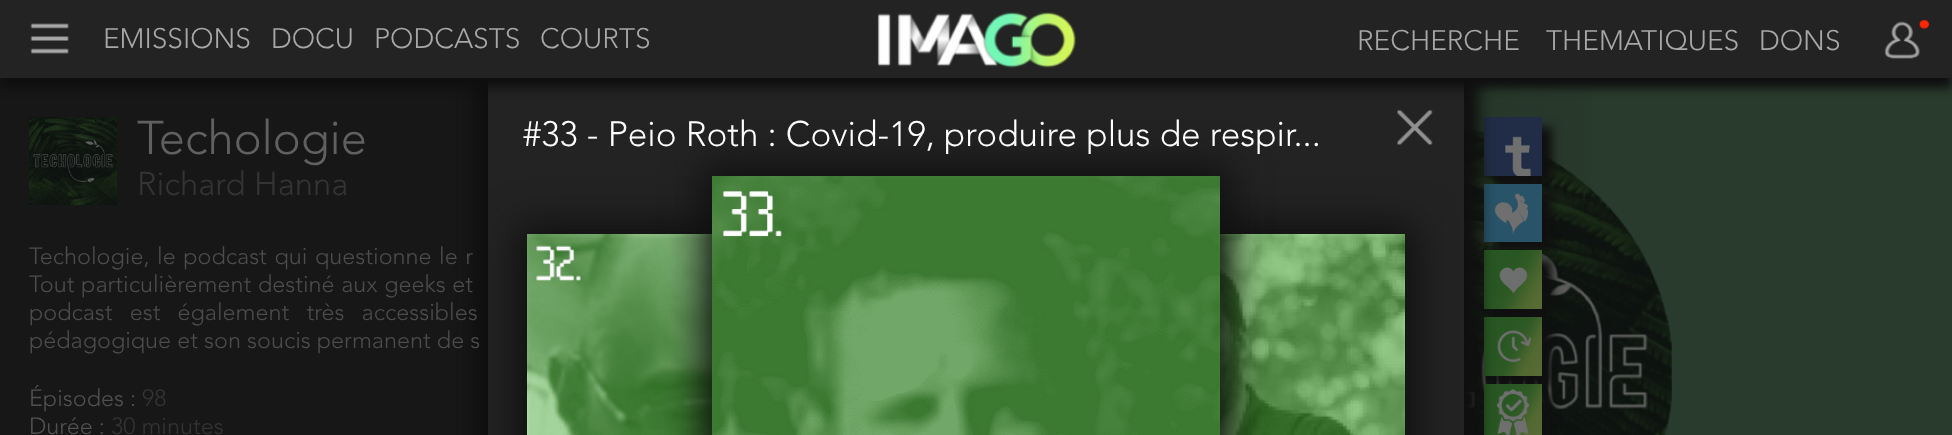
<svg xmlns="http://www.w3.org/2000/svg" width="1952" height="435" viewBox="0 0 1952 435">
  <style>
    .t1 { font: 300 28px Avenir; fill: #a7a7a7; }
    .t2 { font: 300 47px Avenir; fill: #606060; }
    .t3 { font: 300 32.75px Avenir; fill: #343434; }
    .t4 { font: 300 23.4px Avenir; fill: #4b4d4b; }
    .t5 { font: 300 23.4px Avenir; fill: #515151; }
    .t6 { font: 300 23.4px Avenir; fill: #343434; }
    .t7 { font: 300 35.1px Avenir; fill: #fff; }
  </style>
  <defs>
    <linearGradient id="g1" gradientUnits="userSpaceOnUse" x1="566" y1="346" x2="1640" y2="345"><stop offset="0" stop-color="#171717" stop-opacity="0.83"/><stop offset="1" stop-color="#171717" stop-opacity="0"/></linearGradient>
    <clipPath id="clip1"><rect x="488" y="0" width="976" height="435"/></clipPath>
  </defs>
  <rect width="100%" height="100%" fill="#171717"/>
  <image x="1464" y="78" width="488" height="357" href="images/5.png"/>
  <rect x="1464" y="78" width="127" height="331" fill="url(#g1)"/>
  <rect x="1494" y="127" width="58" height="59" fill="#0f0f0f" filter="blur(5px)"/>
  <image x="1484" y="117" width="58" height="59" href="images/11.png"/>
  <rect x="1494" y="194" width="58" height="58" fill="#0f0f0f" filter="blur(5px)"/>
  <image x="1484" y="184" width="58" height="58" href="images/12.png"/>
  <rect x="1494" y="260" width="58" height="59" fill="#0f0f0f" filter="blur(5px)"/>
  <image x="1484" y="250" width="58" height="59" href="images/13.png"/>
  <rect x="1494" y="327" width="58" height="59" fill="#0f0f0f" filter="blur(5px)"/>
  <image x="1484" y="317" width="58" height="59" href="images/14.png"/>
  <rect x="1494" y="394" width="58" height="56" fill="#0f0f0f" filter="blur(5px)"/>
  <image x="1484" y="384" width="58" height="51" href="images/15.png"/>
  <rect x="473" y="-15" width="1006" height="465" fill="#0f0f0f" filter="blur(7.5px)"/>
  <rect x="488" y="78" width="976" height="357" fill="#232323"/>
  <rect x="0" y="10" width="1952" height="78" fill="#0f0f0f" filter="blur(5px)"/>
  <rect x="0" y="0" width="1952" height="78" fill="#232323"/>
  <image x="30" y="23" width="39" height="31" href="images/1.png"/>
  <text x="103" y="48" class="t1">EMISSIONS</text>
  <text x="271" y="48" class="t1">DOCU</text>
  <text x="374" y="48" class="t1">PODCASTS</text>
  <text x="540" y="48" class="t1">COURTS</text>
  <image x="877" y="12" width="199" height="56" href="images/2.png"/>
  <text x="1357" y="50" class="t1">RECHERCHE</text>
  <text x="1546" y="50" class="t1">THEMATIQUES</text>
  <text x="1759" y="50" class="t1">DONS</text>
  <image x="1884" y="21" width="36" height="38" href="images/3.png"/>
  <image x="1919" y="20" width="10" height="9" href="images/4.png"/>
  <image x="29" y="117" width="88" height="88" href="images/6.png"/>
  <text x="137" y="154" class="t2">Techologie</text>
  <text x="137" y="195" class="t3">Richard Hanna</text>
  <text x="29" y="264" word-spacing="1.5" class="t4">Techologie, le podcast qui questionne le r</text>
  <text x="29" y="292" word-spacing="0.5" class="t4">Tout particulièrement destiné aux geeks et</text>
  <text x="29" y="320" word-spacing="11" class="t4">podcast est également très accessibles</text>
  <text x="29" y="348" class="t4">pédagogique et son soucis permanent de s</text>
  <text x="29" y="406" class="t5">Épisodes :</text>
  <text x="142" y="406" class="t6">98</text>
  <text x="29" y="434" class="t5">Durée :</text>
  <text x="111" y="434" class="t6">30 minutes</text>
  <g clip-path="url(#clip1)">
    <rect x="517" y="224" width="410" height="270" fill="#0f0f0f" filter="blur(19.5px)"/>
  </g>
  <image x="527" y="234" width="185" height="201" href="images/8.png"/>
  <rect x="1005" y="224" width="410" height="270" fill="#0f0f0f" filter="blur(19.5px)"/>
  <image x="1220" y="234" width="185" height="201" href="images/9.png"/>
  <rect x="702" y="166" width="528" height="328" fill="#0f0f0f" filter="blur(19.5px)"/>
  <image x="712" y="176" width="508" height="259" href="images/7.png"/>
  <text x="523" y="146" class="t7">#33 - Peio Roth : Covid-19, produire plus de respir...</text>
  <image x="1397" y="109" width="36" height="36" href="images/10.png"/>
</svg>
